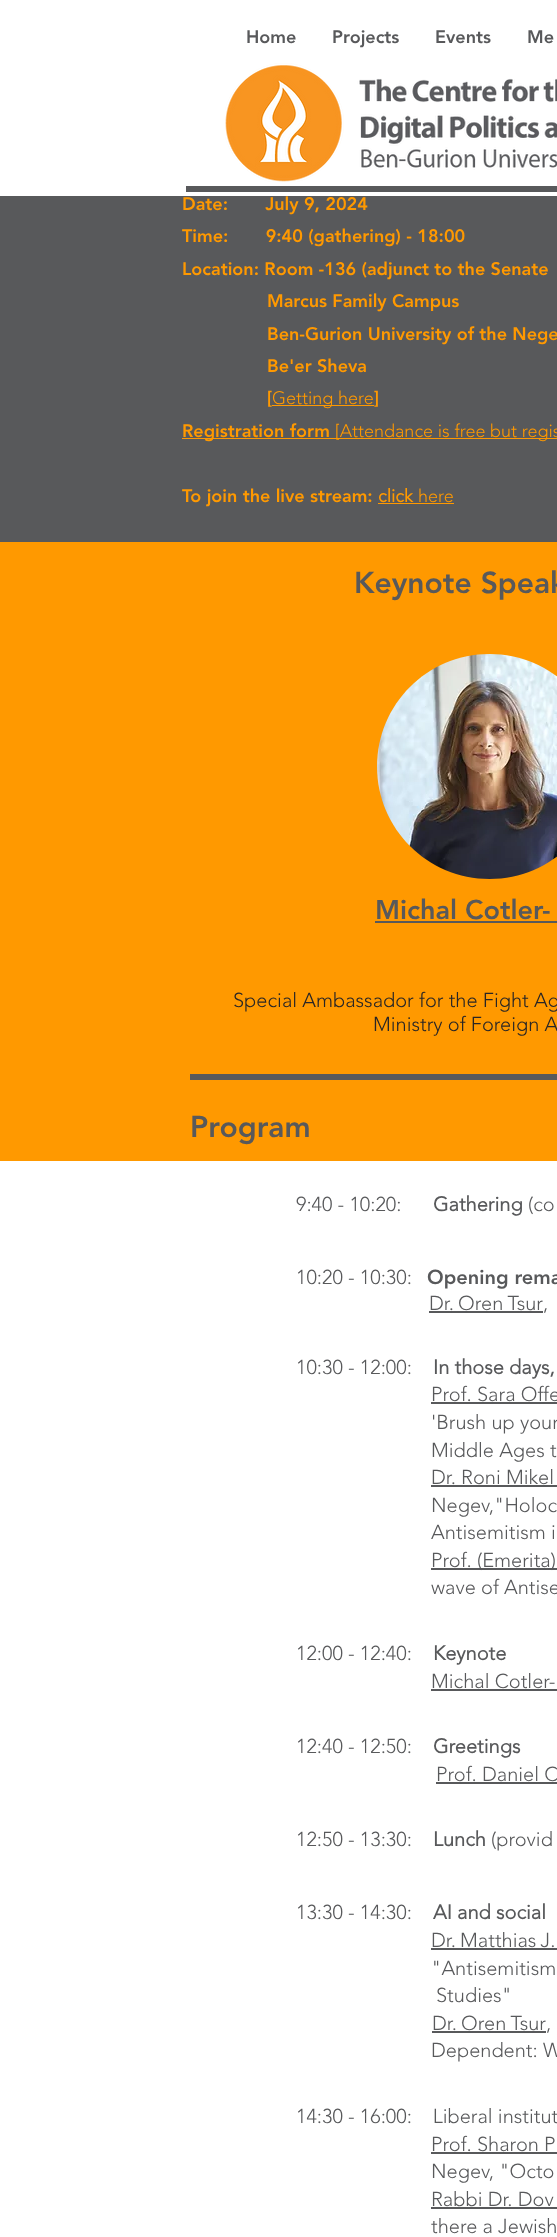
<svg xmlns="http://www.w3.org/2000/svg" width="557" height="2237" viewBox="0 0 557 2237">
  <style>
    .t1 { font: 900 18px 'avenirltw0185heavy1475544'; fill: #58595b; }
    .t2 { font: 900 18px 'avenirltw0185heavy1475544'; fill: #f90; }
    .t3 { font: 300 18px 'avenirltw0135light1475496'; fill: #f90; }
    .t4 { font: bold 18px 'avenirltw0135light1475496'; fill: #f90; }
    .t5 { font: 900 30px 'avenirltw0185heavy1475544'; fill: #58595b; }
    .t6 { font: 900 27px 'avenirltw0185heavy1475544'; fill: #58595b; }
    .t7 { font: 300 20px 'avenirltw0135light1475496'; fill: #282626; }
    .t8 { font: 300 20px 'avenirltw0135light1475496'; fill: #58595b; }
    .t9 { font: bold 20px 'avenirltw0135light1475496'; fill: #58595b; }
    .t10 { font: 900 20px 'avenirltw0185heavy1475544'; fill: #58595b; }
  </style>
  <rect width="100%" height="100%" fill="#fff"/>
  <text x="246" y="43" class="t1">Home</text>
  <text x="332" y="43" class="t1">Projects</text>
  <text x="435" y="43" class="t1">Events</text>
  <text x="527" y="43" class="t1">Me</text>
  <image x="225" y="63" width="332" height="119" href="images/1.png"/>
  <rect x="186" y="186" width="371" height="6" fill="#58595b"/>
  <rect x="0" y="196" width="557" height="346" fill="#58595b"/>
  <text x="182" y="210" class="t2" xml:space="preserve">Date:       July 9, 2024</text>
  <text x="182" y="242" class="t2" xml:space="preserve">Time:       9:40 (gathering) - 18:00</text>
  <text x="182" y="275" class="t2">Location: Room -136 (adjunct to the Senate</text>
  <text x="267" y="307" class="t2">Marcus Family Campus</text>
  <text x="267" y="340" class="t2">Ben-Gurion University of the Nege</text>
  <text x="267" y="372" class="t2">Be'er Sheva</text>
  <text x="267" y="404" class="t2">[</text>
  <rect x="272" y="405" width="102" height="1" fill="#f90"/>
  <text x="272" y="404" class="t3">Getting here</text>
  <text x="374" y="404" class="t2">]</text>
  <rect x="182" y="438" width="375" height="1" fill="#f90"/>
  <text x="182" y="437" class="t2">Registration form</text>
  <text x="335" y="437" class="t3">[Attendance is free but regis</text>
  <text x="182" y="502" class="t2">To join the live stream:</text>
  <text x="378" y="502" class="t4">click</text>
  <rect x="378" y="503" width="76" height="1" fill="#f90"/>
  <text x="418" y="502" class="t3">here</text>
  <rect x="0" y="542" width="557" height="619" fill="#f90"/>
  <text x="354" y="593" class="t5">Keynote Speak</text>
  <image x="377" y="654" width="180" height="225" href="images/2.png"/>
  <text x="375" y="919" class="t6">Michal Cotler-</text>
  <rect x="375" y="921" width="182" height="2" fill="#58595b"/>
  <text x="233" y="1007" class="t7">Special Ambassador for the Fight Ag</text>
  <text x="373" y="1031" class="t7">Ministry of Foreign A</text>
  <rect x="190" y="1074" width="367" height="6" fill="#58595b"/>
  <text x="190" y="1137" class="t5">Program</text>
  <text x="296" y="1211" class="t8">9:40 - 10:20:</text>
  <text x="433" y="1211" class="t9">Gathering</text>
  <text x="528" y="1211" class="t8">(co</text>
  <text x="296" y="1284" class="t8">10:20 - 10:30:</text>
  <text x="427" y="1284" class="t10">Opening rema</text>
  <text x="429" y="1310" word-spacing="-1" class="t8">Dr. Oren Tsur</text>
  <text x="543" y="1310" class="t8">,</text>
  <rect x="429" y="1311" width="114" height="2" fill="#58595b"/>
  <text x="296" y="1374" class="t8">10:30 - 12:00:</text>
  <text x="433" y="1374" class="t9">In those days,</text>
  <text x="431" y="1401" class="t8">Prof. Sara Offe</text>
  <rect x="431" y="1402" width="126" height="2" fill="#58595b"/>
  <text x="431" y="1429" class="t8">'Brush up your</text>
  <text x="431" y="1457" class="t8">Middle Ages t</text>
  <text x="431" y="1484" class="t8">Dr. Roni Mikel</text>
  <rect x="431" y="1485" width="126" height="2" fill="#58595b"/>
  <text x="431" y="1512" class="t8">Negev,"Holoc</text>
  <text x="431" y="1539" class="t8">Antisemitism i</text>
  <rect x="431" y="1568" width="126" height="2" fill="#58595b"/>
  <text x="431" y="1567" class="t8">Prof. (Emerita)</text>
  <text x="431" y="1594" class="t8">wave of Antise</text>
  <text x="296" y="1660" class="t8">12:00 - 12:40:</text>
  <text x="433" y="1660" class="t9">Keynote</text>
  <text x="431" y="1688" class="t8">Michal Cotler-</text>
  <rect x="431" y="1689" width="126" height="2" fill="#58595b"/>
  <text x="296" y="1753" class="t8">12:40 - 12:50:</text>
  <text x="433" y="1753" class="t9">Greetings</text>
  <text x="436" y="1781" class="t8">Prof. Daniel C</text>
  <rect x="436" y="1782" width="121" height="2" fill="#58595b"/>
  <text x="296" y="1846" class="t8">12:50 - 13:30:</text>
  <text x="433" y="1846" class="t9">Lunch</text>
  <text x="491" y="1846" class="t8">(provid</text>
  <text x="296" y="1919" class="t8">13:30 - 14:30:</text>
  <text x="433" y="1919" class="t9">AI and social</text>
  <text x="431" y="1947" word-spacing="-1" class="t8">Dr. Matthias J.</text>
  <rect x="431" y="1948" width="126" height="2" fill="#58595b"/>
  <text x="431" y="1975" class="t8">"Antisemitism</text>
  <text x="436" y="2002" class="t8">Studies"</text>
  <text x="432" y="2030" word-spacing="-1" class="t8">Dr. Oren Tsur</text>
  <text x="546" y="2030" class="t8">,</text>
  <rect x="432" y="2031" width="114" height="2" fill="#58595b"/>
  <text x="431" y="2057" class="t8">Dependent: W</text>
  <text x="296" y="2123" class="t8" xml:space="preserve">14:30 - 16:00:    Liberal institut</text>
  <text x="431" y="2151" class="t8">Prof. Sharon P</text>
  <rect x="431" y="2152" width="126" height="2" fill="#58595b"/>
  <text x="431" y="2178" class="t8">Negev, "Octo</text>
  <text x="431" y="2206" class="t8">Rabbi Dr. Dov</text>
  <rect x="431" y="2207" width="126" height="2" fill="#58595b"/>
  <text x="431" y="2233" class="t8">there a Jewish</text>
</svg>
